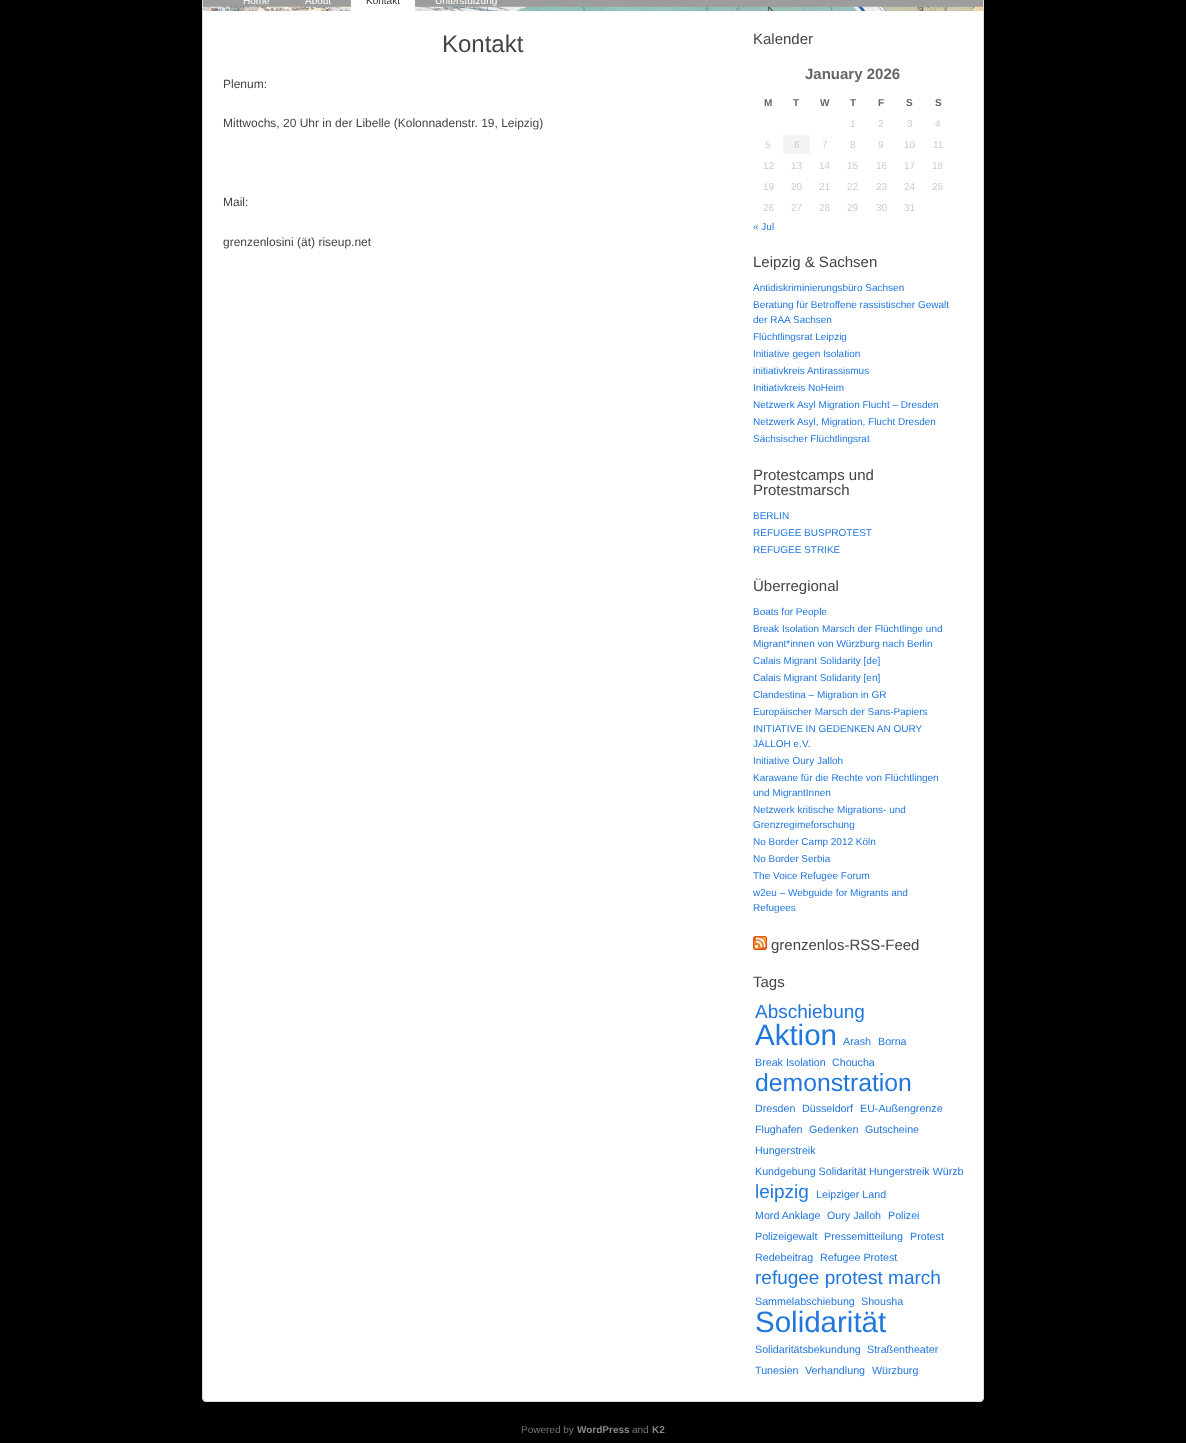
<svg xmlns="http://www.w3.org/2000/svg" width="1186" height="1443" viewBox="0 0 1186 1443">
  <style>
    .t1 { font: 10px Liberation Sans; fill: #fff; }
    .t2 { font: 10px Liberation Sans; fill: #333; }
    .t3 { font: 24px Liberation Sans; fill: #444; }
    .t4 { font: 12px Liberation Sans; fill: #444; }
    .t5 { font: 15px Liberation Sans; fill: #444; }
    .t6 { font: bold 15px Liberation Sans; fill: #666; }
    .t7 { font: bold 10px Liberation Sans; fill: #666; }
    .t8 { font: 10px Liberation Sans; fill: #ccc; }
    .t9 { font: 10px Liberation Sans; fill: #27d; }
    .t10 { font: 19px Liberation Sans; fill: #27d; }
    .t11 { font: 29.5px Liberation Sans; fill: #27d; }
    .t12 { font: 10.7px Liberation Sans; fill: #27d; }
    .t13 { font: 24.75px Liberation Sans; fill: #27d; }
    .t14 { font: 10px Liberation Sans; fill: #777; }
    .t15 { font: bold 10px Liberation Sans; fill: #888; }
  </style>
  <rect width="100%" height="100%" fill="#000"/>
  <path d="M202-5H984V1397C984 1400 982 1402 979 1402H207C204 1402 202 1400 202 1397Z" fill="#fff"/>
  <path d="M202-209H984V1397C984 1400 982 1402 979 1402H207C204 1402 202 1400 202 1397ZM203-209H983V1397C983 1399 981 1401 979 1401H207C205 1401 203 1399 203 1397Z" fill="#ddd" fill-rule="evenodd"/>
  <image x="203" y="0" width="780" height="11" href="images/1.png"/>
  <text x="243" y="4" class="t1">Home</text>
  <text x="305" y="4" class="t1">About</text>
  <rect x="351" y="0" width="64" height="11" fill="#fff"/>
  <text x="366" y="4" class="t2">Kontakt</text>
  <text x="435" y="4" class="t1">Unterstützung</text>
  <text x="442" y="52" class="t3">Kontakt</text>
  <text x="223" y="88" class="t4">Plenum:</text>
  <text x="223" y="127" class="t4">Mittwochs, 20 Uhr in der Libelle (Kolonnadenstr. 19, Leipzig)</text>
  <text x="223" y="206" class="t4">Mail:</text>
  <text x="223" y="246" class="t4">grenzenlosini (ät) riseup.net</text>
  <text x="753" y="44" class="t5">Kalender</text>
  <text x="805" y="79" class="t6">January 2026</text>
  <text x="764" y="106" class="t7">M</text>
  <text x="793" y="106" class="t7">T</text>
  <text x="820" y="106" class="t7">W</text>
  <text x="850" y="106" class="t7">T</text>
  <text x="878" y="106" class="t7">F</text>
  <text x="906" y="106" class="t7">S</text>
  <text x="935" y="106" class="t7">S</text>
  <text x="850" y="127" class="t8">1</text>
  <text x="878" y="127" class="t8">2</text>
  <text x="907" y="127" class="t8">3</text>
  <text x="935" y="127" class="t8">4</text>
  <text x="765" y="148" class="t8">5</text>
  <rect x="783" y="135" width="27" height="19" fill="#f3f3f3"/>
  <text x="794" y="148" class="t8">6</text>
  <text x="822" y="148" class="t8">7</text>
  <text x="850" y="148" class="t8">8</text>
  <text x="878" y="148" class="t8">9</text>
  <text x="904" y="148" class="t8">10</text>
  <text x="933" y="148" class="t8">11</text>
  <text x="763" y="169" class="t8">12</text>
  <text x="791" y="169" class="t8">13</text>
  <text x="819" y="169" class="t8">14</text>
  <text x="847" y="169" class="t8">15</text>
  <text x="876" y="169" class="t8">16</text>
  <text x="904" y="169" class="t8">17</text>
  <text x="932" y="169" class="t8">18</text>
  <text x="763" y="190" class="t8">19</text>
  <text x="791" y="190" class="t8">20</text>
  <text x="819" y="190" class="t8">21</text>
  <text x="847" y="190" class="t8">22</text>
  <text x="876" y="190" class="t8">23</text>
  <text x="904" y="190" class="t8">24</text>
  <text x="932" y="190" class="t8">25</text>
  <text x="763" y="211" class="t8">26</text>
  <text x="791" y="211" class="t8">27</text>
  <text x="819" y="211" class="t8">28</text>
  <text x="847" y="211" class="t8">29</text>
  <text x="876" y="211" class="t8">30</text>
  <text x="904" y="211" class="t8">31</text>
  <text x="753" y="230" class="t9">« Jul</text>
  <text x="753" y="267" class="t5">Leipzig &amp; Sachsen</text>
  <text x="753" y="291" class="t9">Antidiskriminierungsbüro Sachsen</text>
  <text x="753" y="308" class="t9">Beratung für Betroffene rassistischer Gewalt</text>
  <text x="753" y="323" class="t9">der RAA Sachsen</text>
  <text x="753" y="340" class="t9">Flüchtlingsrat Leipzig</text>
  <text x="753" y="357" class="t9">Initiative gegen Isolation</text>
  <text x="753" y="374" class="t9">initiativkreis Antirassismus</text>
  <text x="753" y="391" class="t9">Initiativkreis NoHeim</text>
  <text x="753" y="408" class="t9">Netzwerk Asyl Migration Flucht – Dresden</text>
  <text x="753" y="425" class="t9">Netzwerk Asyl, Migration, Flucht Dresden</text>
  <text x="753" y="442" class="t9">Sächsischer Flüchtlingsrat</text>
  <text x="753" y="480" class="t5">Protestcamps und</text>
  <text x="753" y="495" class="t5">Protestmarsch</text>
  <text x="753" y="519" class="t9">BERLIN</text>
  <text x="753" y="536" class="t9">REFUGEE BUSPROTEST</text>
  <text x="753" y="553" class="t9">REFUGEE STRIKE</text>
  <text x="753" y="591" class="t5">Überregional</text>
  <text x="753" y="615" class="t9">Boats for People</text>
  <text x="753" y="632" class="t9">Break Isolation Marsch der Flüchtlinge und</text>
  <text x="753" y="647" class="t9">Migrant*innen von Würzburg nach Berlin</text>
  <text x="753" y="664" class="t9">Calais Migrant Solidarity [de]</text>
  <text x="753" y="681" class="t9">Calais Migrant Solidarity [en]</text>
  <text x="753" y="698" class="t9">Clandestina – Migration in GR</text>
  <text x="753" y="715" class="t9">Europäischer Marsch der Sans-Papiers</text>
  <text x="753" y="732" class="t9">INITIATIVE IN GEDENKEN AN OURY</text>
  <text x="753" y="747" class="t9">JALLOH e.V.</text>
  <text x="753" y="764" class="t9">Initiative Oury Jalloh</text>
  <text x="753" y="781" class="t9">Karawane für die Rechte von Flüchtlingen</text>
  <text x="753" y="796" class="t9">und MigrantInnen</text>
  <text x="753" y="813" class="t9">Netzwerk kritische Migrations- und</text>
  <text x="753" y="828" class="t9">Grenzregimeforschung</text>
  <text x="753" y="845" class="t9">No Border Camp 2012 Köln</text>
  <text x="753" y="862" class="t9">No Border Serbia</text>
  <text x="753" y="879" class="t9">The Voice Refugee Forum</text>
  <text x="753" y="896" class="t9">w2eu – Webguide for Migrants and</text>
  <text x="753" y="911" class="t9">Refugees</text>
  <image x="753" y="936" width="14" height="14" href="images/2.png"/>
  <text x="771" y="950" class="t5">grenzenlos-RSS-Feed</text>
  <text x="753" y="987" class="t5">Tags</text>
  <text x="755" y="1018" class="t10">Abschiebung</text>
  <text x="755" y="1045" class="t11">Aktion</text>
  <text x="843" y="1045" class="t12">Arash</text>
  <text x="878" y="1045" class="t12">Borna</text>
  <text x="755" y="1066" class="t12">Break Isolation</text>
  <text x="832" y="1066" class="t12">Choucha</text>
  <text x="755" y="1091" class="t13">demonstration</text>
  <text x="755" y="1112" class="t12">Dresden</text>
  <text x="802" y="1112" class="t12">Düsseldorf</text>
  <text x="860" y="1112" class="t12">EU-Außengrenze</text>
  <text x="755" y="1133" class="t12">Flughafen</text>
  <text x="809" y="1133" class="t12">Gedenken</text>
  <text x="865" y="1133" class="t12">Gutscheine</text>
  <text x="755" y="1154" class="t12">Hungerstreik</text>
  <text x="755" y="1175" class="t12">Kundgebung Solidarität Hungerstreik Würzb</text>
  <text x="755" y="1198" class="t10">leipzig</text>
  <text x="816" y="1198" class="t12">Leipziger Land</text>
  <text x="755" y="1219" class="t12">Mord Anklage</text>
  <text x="827" y="1219" class="t12">Oury Jalloh</text>
  <text x="888" y="1219" class="t12">Polizei</text>
  <text x="755" y="1240" class="t12">Polizeigewalt</text>
  <text x="824" y="1240" class="t12">Pressemitteilung</text>
  <text x="910" y="1240" class="t12">Protest</text>
  <text x="755" y="1261" class="t12">Redebeitrag</text>
  <text x="820" y="1261" class="t12">Refugee Protest</text>
  <text x="755" y="1284" class="t10">refugee protest march</text>
  <text x="755" y="1305" class="t12">Sammelabschiebung</text>
  <text x="861" y="1305" class="t12">Shousha</text>
  <text x="755" y="1332" class="t11">Solidarität</text>
  <text x="755" y="1353" class="t12">Solidaritätsbekundung</text>
  <text x="867" y="1353" class="t12">Straßentheater</text>
  <text x="755" y="1374" class="t12">Tunesien</text>
  <text x="805" y="1374" class="t12">Verhandlung</text>
  <text x="872" y="1374" class="t12">Würzburg</text>
  <text x="521" y="1433" class="t14">Powered by</text>
  <text x="577" y="1433" class="t15">WordPress</text>
  <text x="632" y="1433" class="t14">and</text>
  <text x="652" y="1433" class="t15">K2</text>
</svg>
